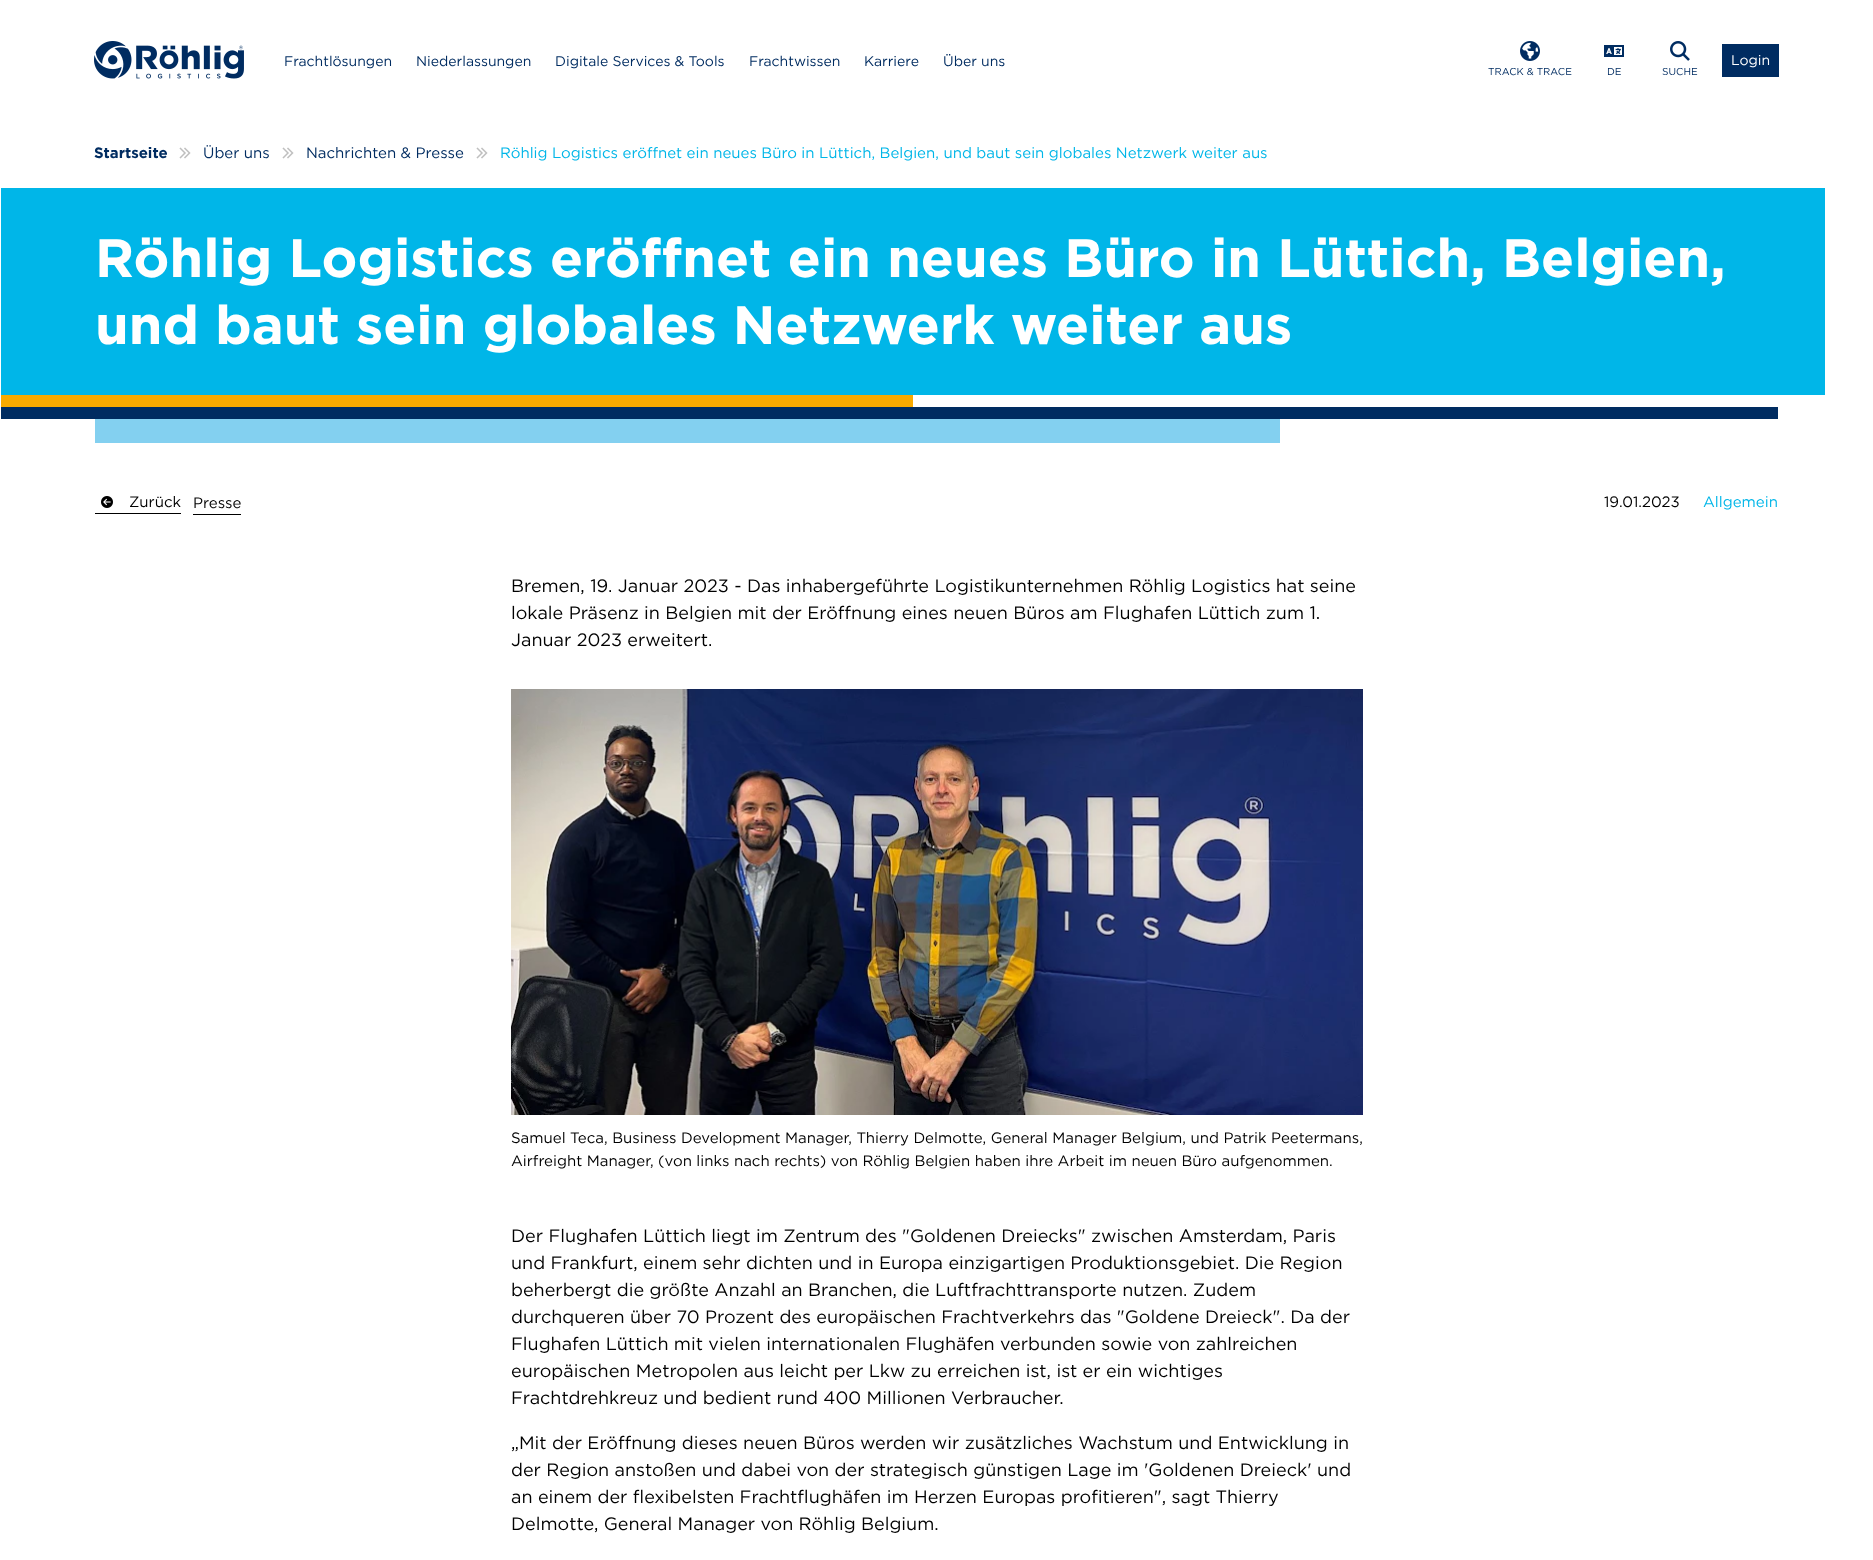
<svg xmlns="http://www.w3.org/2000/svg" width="1873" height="1560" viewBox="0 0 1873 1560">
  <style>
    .t1 { font: 14px Gotham; fill: #002c61; }
    .t2 { font: 14px Gotham; fill: #fff; }
    .t3 { font: 10px Gotham; fill: #002c61; }
    .t4 { font: bold 15px Gotham; fill: #002c61; }
    .t5 { font: 15px Gotham; fill: #002c61; }
    .t6 { font: 15px Gotham; fill: #00b6e8; }
    .t7 { font: bold 54.1px Gotham; fill: #fff; }
    .t8 { font: 15px Gotham; fill: #000; }
    .t9 { font: 18px Gotham; fill: #000; }
  </style>
  <rect width="100%" height="100%" fill="#fff"/>
  <image x="94" y="41" width="150" height="38" href="images/1.png"/>
  <text x="284" y="66" class="t1">Frachtlösungen</text>
  <text x="416" y="66" class="t1">Niederlassungen</text>
  <text x="555" y="66" class="t1">Digitale Services &amp; Tools</text>
  <text x="749" y="66" class="t1">Frachtwissen</text>
  <text x="864" y="66" class="t1">Karriere</text>
  <text x="943" y="66" class="t1">Über uns</text>
  <rect x="1722" y="44" width="57" height="33" fill="#002c61"/>
  <text x="1731" y="65" class="t2">Login</text>
  <image x="1520" y="41" width="20" height="20" href="images/2.png"/>
  <text x="1488" y="75" class="t3">TRACK &amp; TRACE</text>
  <image x="1604" y="45" width="20" height="12" href="images/3.png"/>
  <text x="1607" y="75" class="t3">DE</text>
  <image x="1670" y="41" width="20" height="20" href="images/4.png"/>
  <text x="1662" y="75" class="t3">SUCHE</text>
  <text x="94" y="158" class="t4">Startseite</text>
  <image x="179" y="147" width="12" height="12" href="images/5.png"/>
  <text x="203" y="158" class="t5">Über uns</text>
  <image x="282" y="147" width="12" height="12" href="images/5.png"/>
  <text x="306" y="158" class="t5">Nachrichten &amp; Presse</text>
  <image x="476" y="147" width="12" height="12" href="images/5.png"/>
  <text x="500" y="158" class="t6">Röhlig Logistics eröffnet ein neues Büro in Lüttich, Belgien, und baut sein globales Netzwerk weiter aus</text>
  <rect x="1" y="188" width="1824" height="207" fill="#00b6e8"/>
  <text x="95" y="277" class="t7">Röhlig Logistics eröffnet ein neues Büro in Lüttich, Belgien,</text>
  <text x="95" y="344" class="t7">und baut sein globales Netzwerk weiter aus</text>
  <rect x="1" y="395" width="912" height="12" fill="#f8aa00"/>
  <rect x="1" y="407" width="1777" height="12" fill="#002c61"/>
  <rect x="95" y="419" width="1185" height="24" fill="#83d0f0"/>
  <rect x="95" y="513" width="86" height="1" fill="#000"/>
  <image x="101" y="496" width="12" height="12" href="images/6.png"/>
  <text x="129" y="507" class="t8">Zurück</text>
  <rect x="193" y="514" width="48" height="1" fill="#000"/>
  <text x="193" y="508" class="t8">Presse</text>
  <text x="1604" y="507" class="t8">19.01.2023</text>
  <text x="1703" y="507" class="t6">Allgemein</text>
  <text x="511" y="592" class="t9">Bremen, 19. Januar 2023 - Das inhabergeführte Logistikunternehmen Röhlig Logistics hat seine</text>
  <text x="511" y="619" class="t9">lokale Präsenz in Belgien mit der Eröffnung eines neuen Büros am Flughafen Lüttich zum 1.</text>
  <text x="511" y="646" class="t9">Januar 2023 erweitert.</text>
  <image x="511" y="689" width="852" height="426" href="images/7.png"/>
  <text x="511" y="1143" class="t8">Samuel Teca, Business Development Manager, Thierry Delmotte, General Manager Belgium, und Patrik Peetermans,</text>
  <text x="511" y="1166" class="t8">Airfreight Manager, (von links nach rechts) von Röhlig Belgien haben ihre Arbeit im neuen Büro aufgenommen.</text>
  <text x="511" y="1242" class="t9">Der Flughafen Lüttich liegt im Zentrum des "Goldenen Dreiecks" zwischen Amsterdam, Paris</text>
  <text x="511" y="1269" class="t9">und Frankfurt, einem sehr dichten und in Europa einzigartigen Produktionsgebiet. Die Region</text>
  <text x="511" y="1296" class="t9">beherbergt die größte Anzahl an Branchen, die Luftfrachttransporte nutzen. Zudem</text>
  <text x="511" y="1323" class="t9">durchqueren über 70 Prozent des europäischen Frachtverkehrs das "Goldene Dreieck". Da der</text>
  <text x="511" y="1350" class="t9">Flughafen Lüttich mit vielen internationalen Flughäfen verbunden sowie von zahlreichen</text>
  <text x="511" y="1377" class="t9">europäischen Metropolen aus leicht per Lkw zu erreichen ist, ist er ein wichtiges</text>
  <text x="511" y="1404" class="t9">Frachtdrehkreuz und bedient rund 400 Millionen Verbraucher.</text>
  <text x="511" y="1449" class="t9">„Mit der Eröffnung dieses neuen Büros werden wir zusätzliches Wachstum und Entwicklung in</text>
  <text x="511" y="1476" class="t9">der Region anstoßen und dabei von der strategisch günstigen Lage im 'Goldenen Dreieck' und</text>
  <text x="511" y="1503" class="t9">an einem der flexibelsten Frachtflughäfen im Herzen Europas profitieren", sagt Thierry</text>
  <text x="511" y="1530" class="t9">Delmotte, General Manager von Röhlig Belgium.</text>
</svg>
